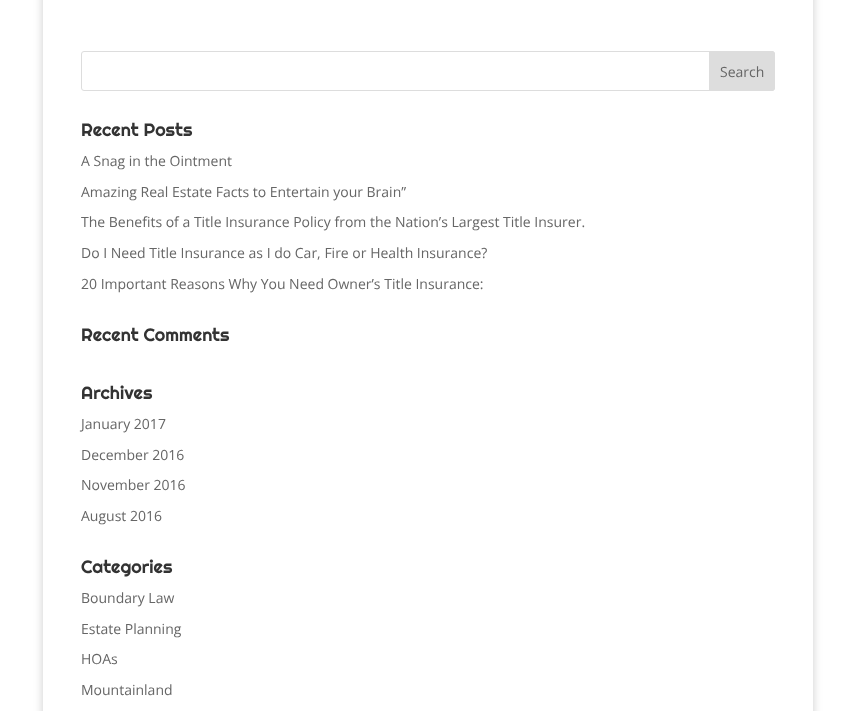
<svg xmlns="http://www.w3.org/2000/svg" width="856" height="711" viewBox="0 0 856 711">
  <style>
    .t1 { font: 14px Open Sans; fill: #666; }
    .t2 { font: 18px Righteous; fill: #333; }
  </style>
  <defs>
    <clipPath id="clip1"><path d="M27 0H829V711H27ZM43-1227H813V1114H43Z" clip-rule="evenodd"/></clipPath>
  </defs>
  <rect width="100%" height="100%" fill="#fff"/>
  <g clip-path="url(#clip1)">
    <rect x="43" y="-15" width="770" height="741" fill="#00000033" filter="blur(5px)"/>
  </g>
  <rect x="81.5" y="51.5" width="693" height="39" rx="2.5" fill="none" stroke="#ddd"/>
  <path d="M709.5 51.5H772C773.5 51.5 774.5 52.5 774.5 54V88C774.5 89.5 773.5 90.5 772 90.5H709.5Z" fill="#ddd" stroke="#ddd"/>
  <text x="720" y="77" class="t1">Search</text>
  <text x="81" y="136" class="t2">Recent Posts</text>
  <text x="81" y="166" class="t1">A Snag in the Ointment</text>
  <text x="81" y="197" class="t1">Amazing Real Estate Facts to Entertain your Brain”</text>
  <text x="81" y="227" class="t1">The Benefits of a Title Insurance Policy from the Nation’s Largest Title Insurer.</text>
  <text x="81" y="258" class="t1">Do I Need Title Insurance as I do Car, Fire or Health Insurance?</text>
  <text x="81" y="289" class="t1">20 Important Reasons Why You Need Owner’s Title Insurance:</text>
  <text x="81" y="341" class="t2">Recent Comments</text>
  <text x="81" y="399" class="t2">Archives</text>
  <text x="81" y="429" class="t1">January 2017</text>
  <text x="81" y="460" class="t1">December 2016</text>
  <text x="81" y="490" class="t1">November 2016</text>
  <text x="81" y="521" class="t1">August 2016</text>
  <text x="81" y="573" class="t2">Categories</text>
  <text x="81" y="603" class="t1">Boundary Law</text>
  <text x="81" y="634" class="t1">Estate Planning</text>
  <text x="81" y="664" class="t1">HOAs</text>
  <text x="81" y="695" class="t1">Mountainland</text>
</svg>
